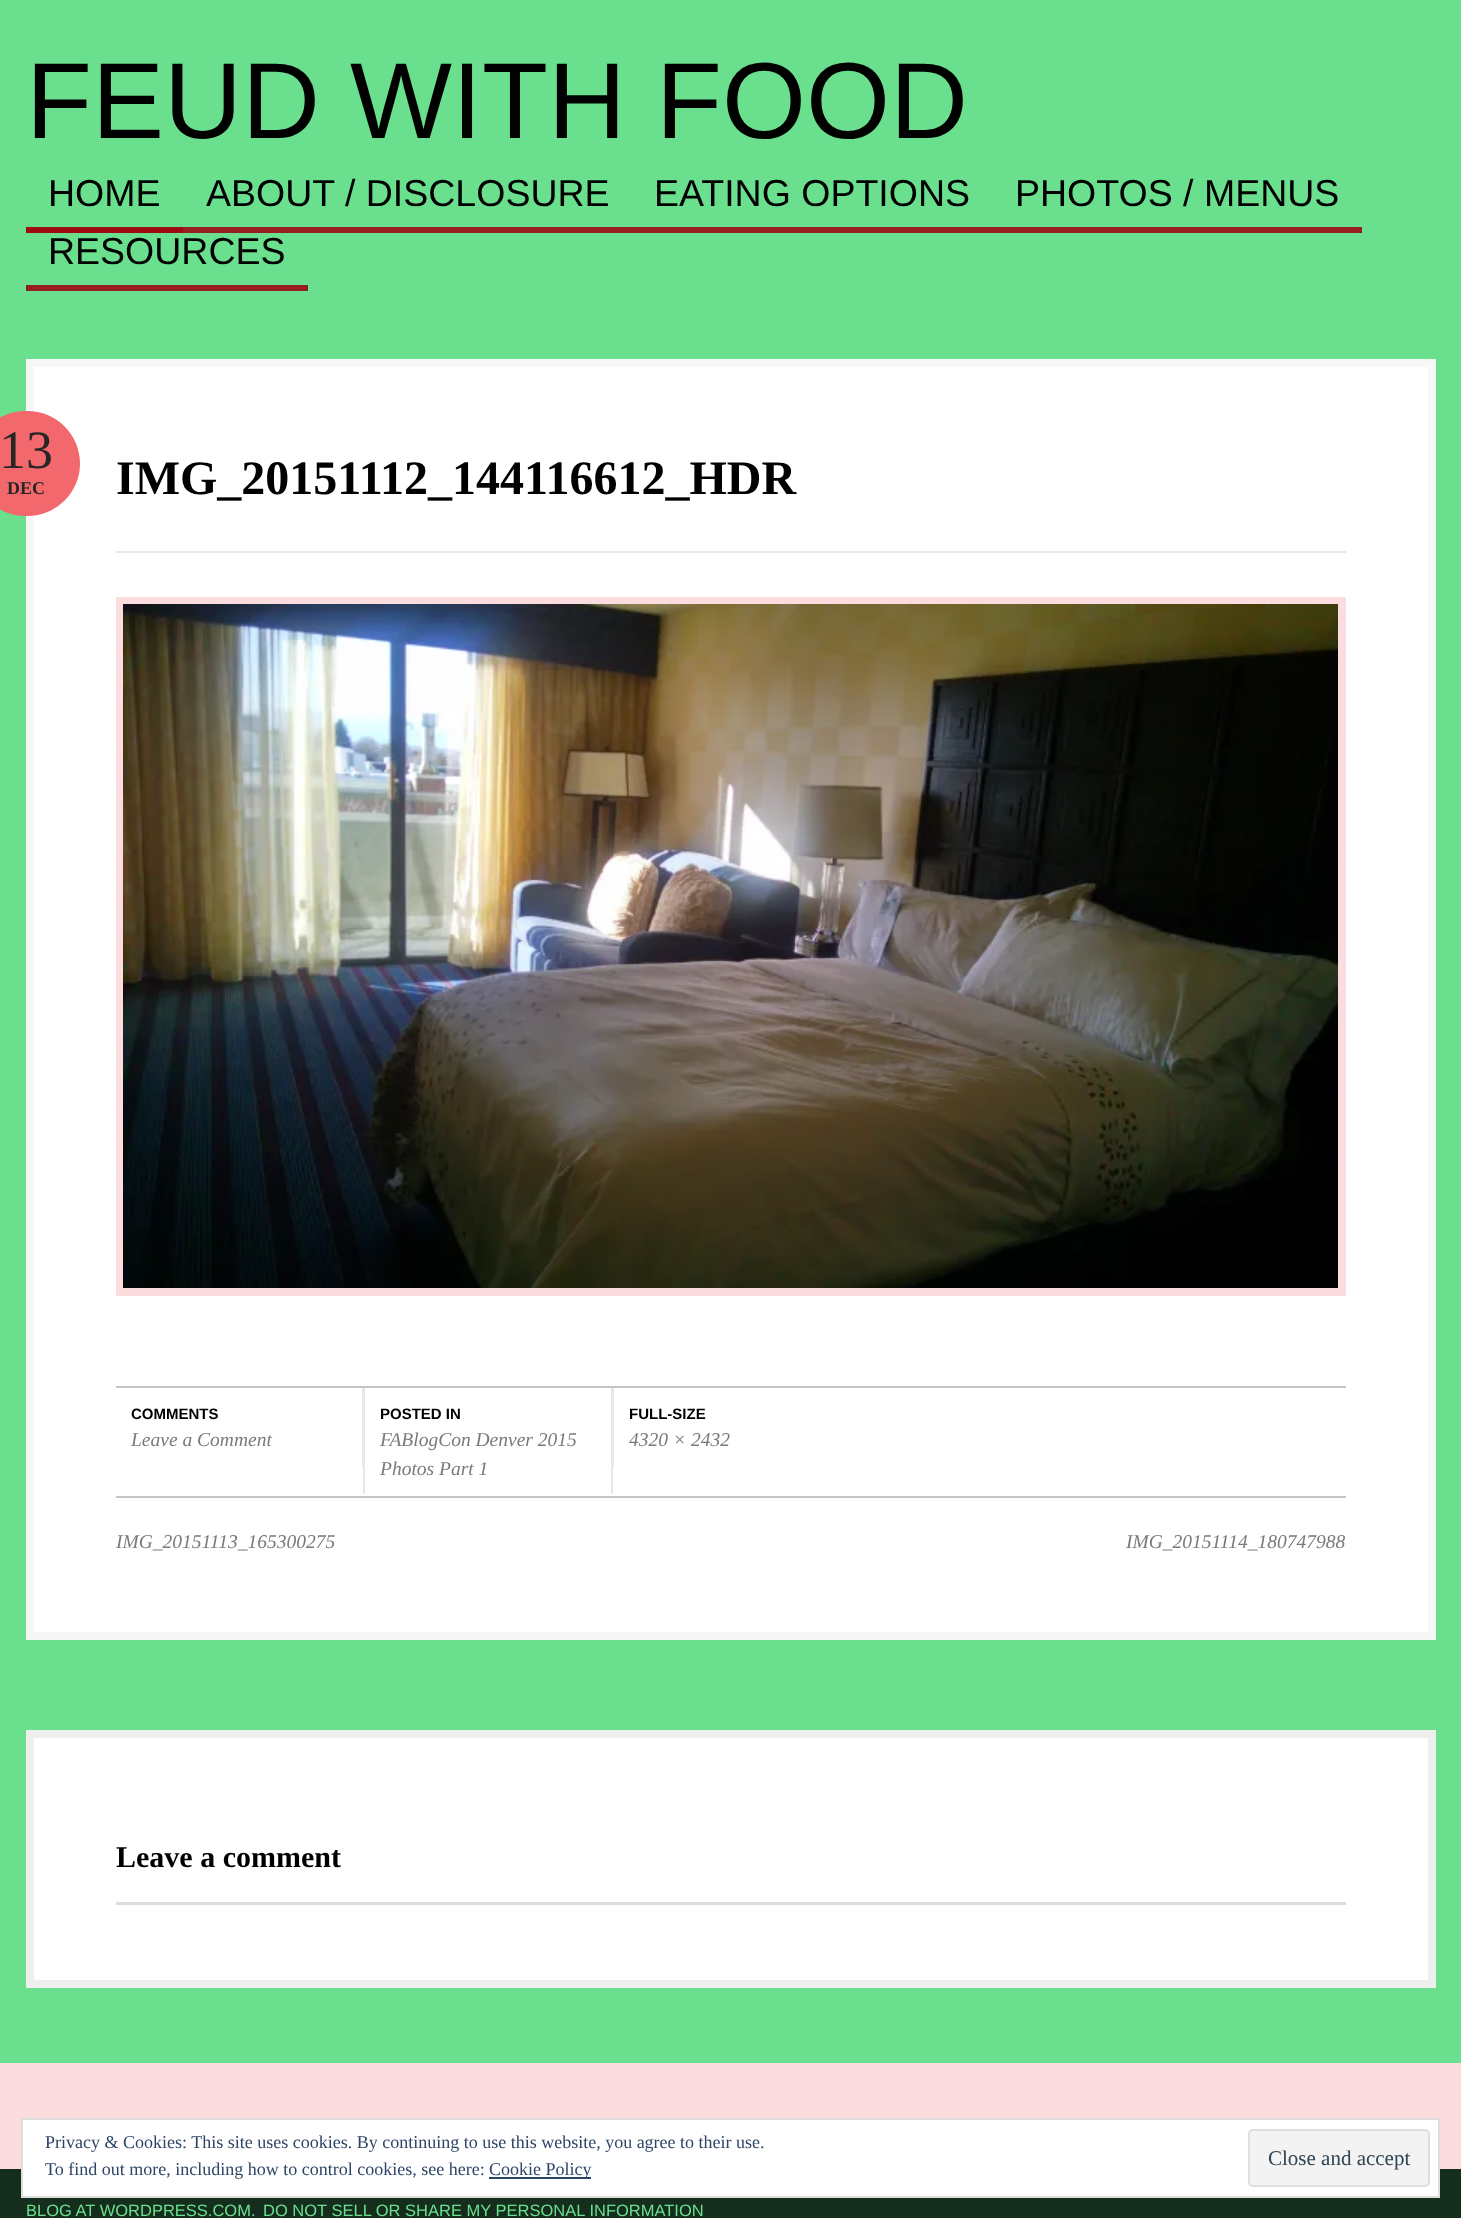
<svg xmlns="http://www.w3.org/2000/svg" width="1461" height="2218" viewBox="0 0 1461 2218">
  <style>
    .t1 { font: 108px Liberation Sans; fill: #000; }
    .t2 { font: 37.5px Liberation Sans; fill: #000; }
    .t3 { font: 54px Liberation Serif; fill: #262626; }
    .t4 { font: bold 18px Liberation Serif; fill: #262626; }
    .t5 { font: bold 48px Liberation Serif; fill: #000; }
    .t6 { font: bold 15px Liberation Sans; fill: #000; }
    .t7 { font: italic 19.5px Liberation Serif; fill: #7a7a7a; }
    .t8 { font: bold 30px Liberation Serif; fill: #000; }
    .t9 { font: 16.5px Liberation Sans; fill: #6ae08e; }
    .t10 { font: 18px Liberation Serif; fill: #2e4467; }
    .t11 { font: 21px Liberation Serif; fill: #2e4453; }
  </style>
  <rect width="100%" height="100%" fill="#6ae08e"/>
  <text x="26" y="138" class="t1">FEUD WITH FOOD</text>
  <rect x="26" y="227" width="157" height="6" fill="#9d0a0f"/>
  <text x="48" y="206" class="t2">HOME</text>
  <rect x="183" y="227" width="1179" height="6" fill="#941e20"/>
  <text x="206" y="206" class="t2">ABOUT / DISCLOSURE</text>
  <text x="654" y="206" class="t2">EATING OPTIONS</text>
  <text x="1015" y="206" class="t2">PHOTOS / MENUS</text>
  <rect x="26" y="285" width="282" height="6" fill="#941e20"/>
  <text x="48" y="264" class="t2">RESOURCES</text>
  <rect x="30" y="363" width="1402" height="1273" fill="#fff" stroke="#f7f7f7" stroke-width="8"/>
  <rect x="-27" y="411" width="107" height="105" rx="52.5" fill="#f3686d"/>
  <text x="-1" y="468" class="t3">13</text>
  <text x="7" y="494" class="t4">DEC</text>
  <rect x="116" y="551" width="1230" height="2" fill="#e7e7e7"/>
  <text x="116" y="494" class="t5">IMG_20151112_144116612_HDR</text>
  <rect x="120" y="601" width="1222" height="691" fill="none" stroke="#fbdddf" stroke-width="8"/>
  <image x="123" y="604" width="1215" height="684" href="images/1.png"/>
  <rect x="116" y="1386" width="1230" height="2" fill="#c4c4c4"/>
  <rect x="116" y="1496" width="1230" height="2" fill="#c4c4c4"/>
  <rect x="362" y="1388" width="1" height="78" fill="#e7e7e7"/>
  <text x="131" y="1419" class="t6">COMMENTS</text>
  <text x="131" y="1446" class="t7">Leave a Comment</text>
  <rect x="611" y="1388" width="2" height="106" fill="#e7e7e7"/>
  <rect x="363" y="1388" width="2" height="106" fill="#e7e7e7"/>
  <text x="380" y="1419" class="t6">POSTED IN</text>
  <text x="380" y="1446" class="t7">FABlogCon Denver 2015</text>
  <text x="380" y="1475" class="t7">Photos Part 1</text>
  <rect x="613" y="1388" width="1" height="78" fill="#e7e7e7"/>
  <text x="629" y="1419" class="t6">FULL-SIZE</text>
  <text x="629" y="1446" class="t7">4320 × 2432</text>
  <text x="116" y="1548" class="t7">IMG_20151113_165300275</text>
  <text x="1126" y="1548" class="t7">IMG_20151114_180747988</text>
  <rect x="30" y="1734" width="1402" height="250" fill="#fff" stroke="#efefef" stroke-width="8"/>
  <text x="116" y="1867" class="t8">Leave a comment</text>
  <rect x="116" y="1902" width="1230" height="3" fill="#dcdcde"/>
  <rect x="0" y="2063" width="1461" height="106" fill="#fbdddf"/>
  <rect x="0" y="2169" width="1461" height="49" fill="#152d1c"/>
  <text x="26" y="2216" class="t9">BLOG AT WORDPRESS.COM.</text>
  <text x="263" y="2216" class="t9">DO NOT SELL OR SHARE MY PERSONAL INFORMATION</text>
  <rect x="22" y="2119" width="1417" height="78" fill="#fff" stroke="#dedede" stroke-width="2"/>
  <text x="45" y="2148" class="t10">Privacy &amp; Cookies: This site uses cookies. By continuing to use this website, you agree to their use.</text>
  <text x="45" y="2175" class="t10">To find out more, including how to control cookies, see here:</text>
  <rect x="489" y="2177" width="102" height="2" fill="#2e4467"/>
  <text x="489" y="2175" class="t10">Cookie Policy</text>
  <rect x="1249" y="2130" width="180" height="56" rx="4" fill="#f3f3f3" stroke="#dedede" stroke-width="2"/>
  <text x="1268" y="2165" class="t11">Close and accept</text>
</svg>
